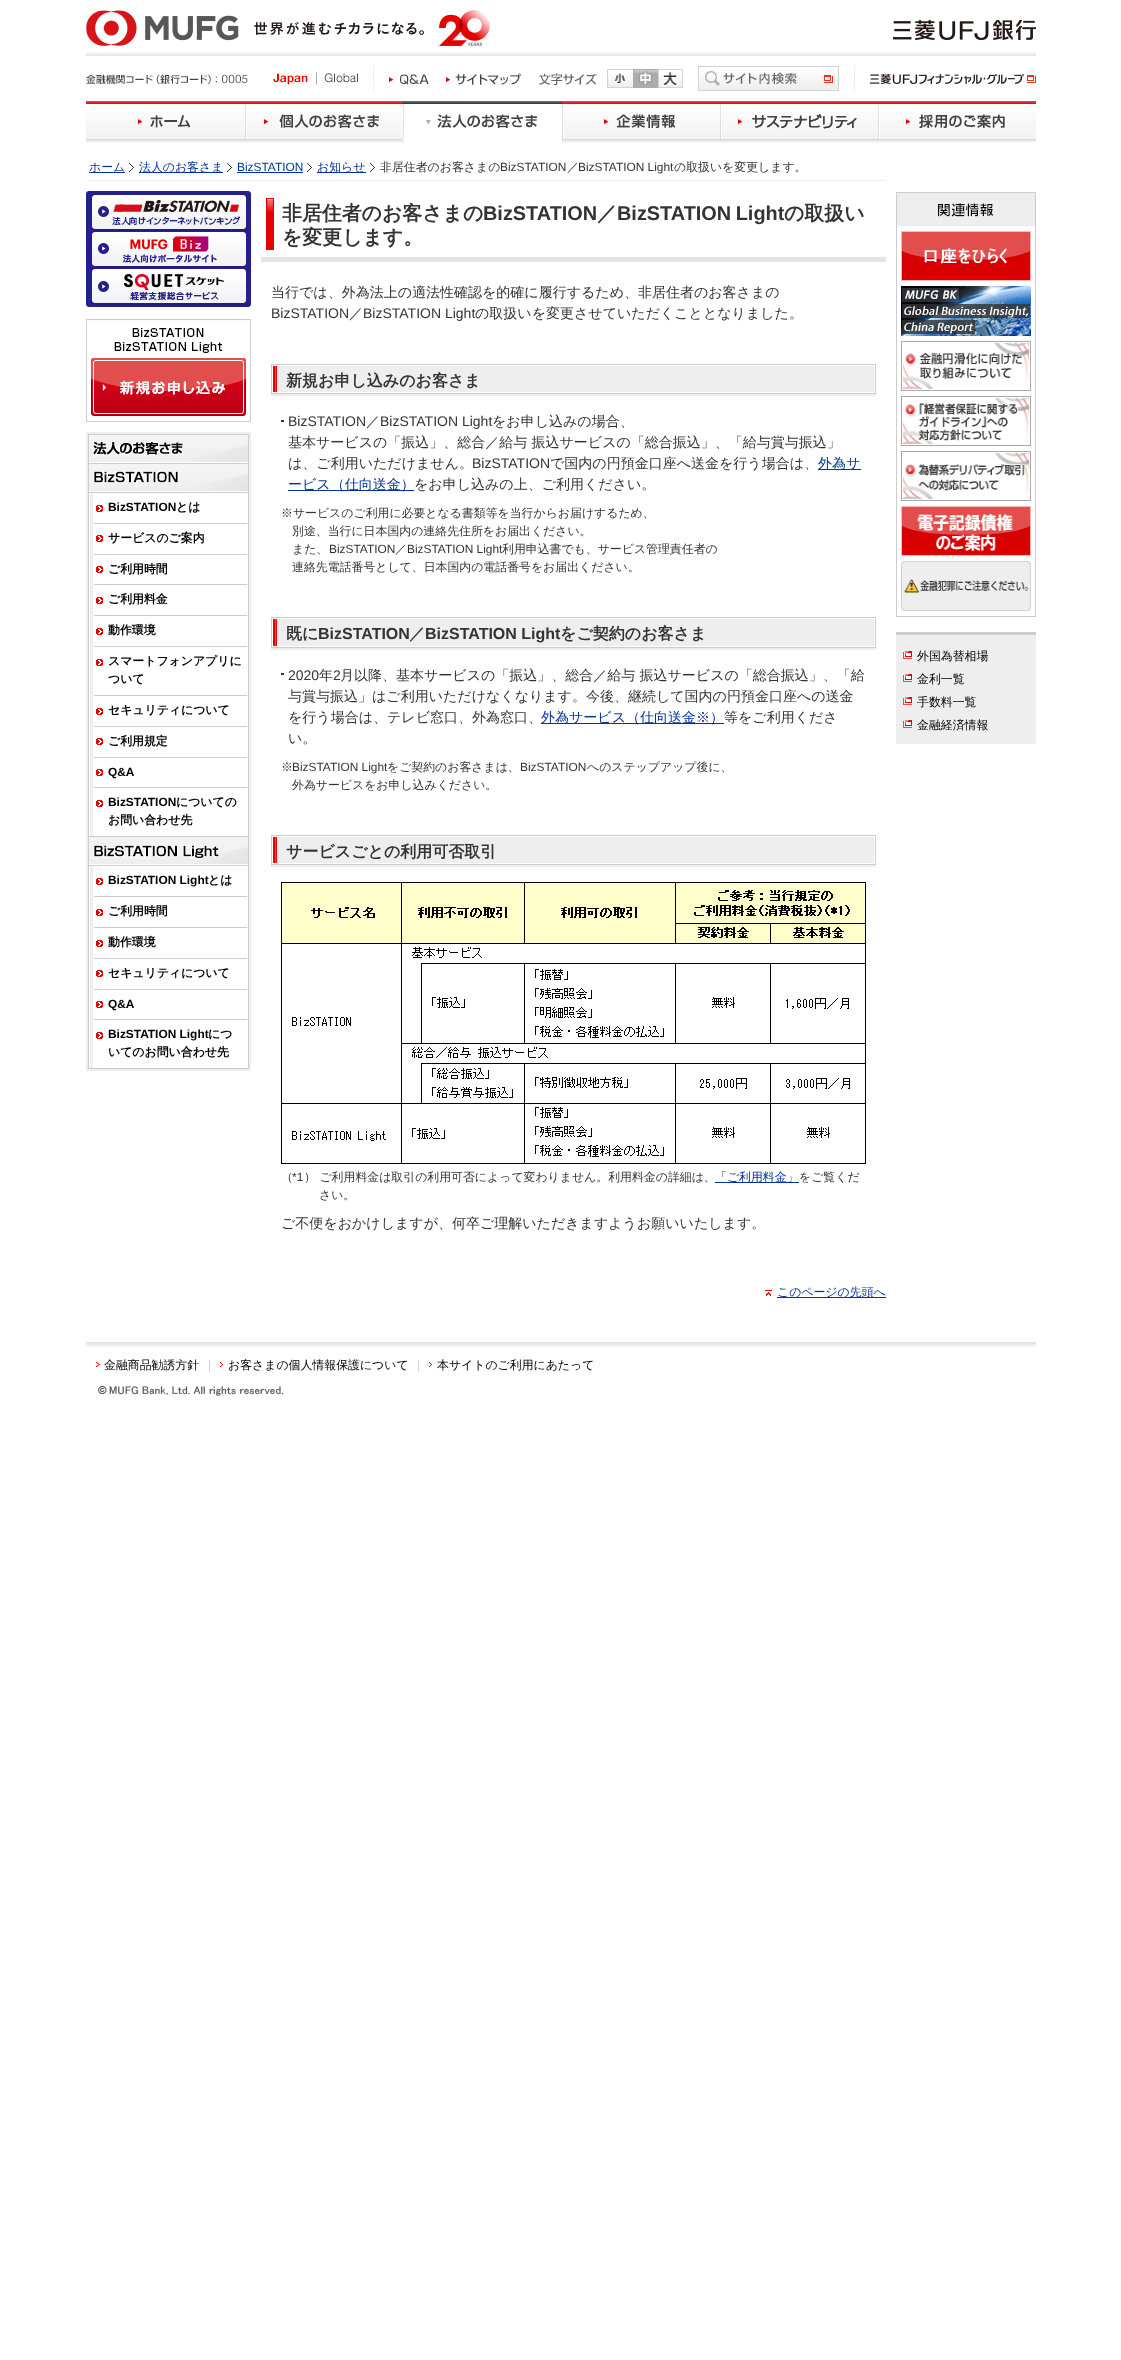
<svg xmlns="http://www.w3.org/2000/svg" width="1121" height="2360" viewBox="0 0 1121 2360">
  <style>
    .t1 { font: 500 11.9px WenQuanYi Zen Hei; fill: #039; }
    .t2 { font: 11.9px Liberation Sans; fill: #039; }
    .t3 { font: 500 11.9px WenQuanYi Zen Hei; fill: #333; }
    .t4 { font: 11.9px Liberation Sans; fill: #333; }
    .t5 { font: bold 11.9px Liberation Sans; fill: #000; }
    .t6 { font: bold 11.9px WenQuanYi Zen Hei; fill: #000; }
    .t7 { font: bold 19.9px WenQuanYi Zen Hei; fill: #333; }
    .t8 { font: bold 19.9px Liberation Sans; fill: #333; }
    .t9 { font: 500 14px WenQuanYi Zen Hei; fill: #333; }
    .t10 { font: 14px Liberation Sans; fill: #333; }
    .t11 { font: bold 16px WenQuanYi Zen Hei; fill: #333; }
    .t12 { font: 500 14px WenQuanYi Zen Hei; fill: #039; }
    .t13 { font: bold 16px Liberation Sans; fill: #333; }
    .t14 { font: 500 11.9px WenQuanYi Zen Hei; fill: #000; }
  </style>
  <rect width="100%" height="100%" fill="#fff"/>
  <image x="86" y="52" width="950" height="4" href="images/1.png"/>
  <image x="86" y="10" width="153" height="36" href="images/2.png"/>
  <image x="254" y="22" width="170" height="13" href="images/3.png"/>
  <image x="439" y="10" width="51" height="36" href="images/4.png"/>
  <image x="893" y="20" width="143" height="20" href="images/5.png"/>
  <image x="316" y="66" width="539" height="25" href="images/6.png"/>
  <image x="539" y="73" width="58" height="12" href="images/7.png"/>
  <image x="607" y="69" width="26" height="19" href="images/8.png"/>
  <image x="633" y="69" width="25" height="19" href="images/9.png"/>
  <image x="658" y="69" width="25" height="19" href="images/10.png"/>
  <image x="698" y="66" width="141" height="25" href="images/11.png"/>
  <image x="86" y="74" width="162" height="10" href="images/12.png"/>
  <image x="389" y="74" width="40" height="11" href="images/13.png"/>
  <image x="446" y="73" width="75" height="12" href="images/14.png"/>
  <image x="870" y="74" width="166" height="10" href="images/15.png"/>
  <image x="273" y="73" width="35" height="12" href="images/16.png"/>
  <image x="324" y="73" width="34" height="10" href="images/17.png"/>
  <image x="86" y="140" width="950" height="3" href="images/18.png"/>
  <image x="86" y="101" width="159" height="39" href="images/19.png"/>
  <image x="245" y="101" width="158" height="39" href="images/20.png"/>
  <image x="403" y="101" width="159" height="38" href="images/21.png"/>
  <image x="562" y="101" width="158" height="39" href="images/22.png"/>
  <image x="720" y="101" width="158" height="39" href="images/23.png"/>
  <image x="878" y="101" width="158" height="39" href="images/24.png"/>
  <image x="86" y="180" width="799" height="1" href="images/25.png"/>
  <image x="129" y="163" width="5" height="9" href="images/26.png"/>
  <rect x="89" y="172" width="36" height="1" fill="#039"/>
  <text x="89" y="171" class="t1">ホーム</text>
  <image x="227" y="163" width="5" height="9" href="images/26.png"/>
  <rect x="139" y="172" width="84" height="1" fill="#039"/>
  <text x="139" y="171" class="t1">法人のお客さま</text>
  <image x="307" y="163" width="5" height="9" href="images/26.png"/>
  <text x="237" y="171" class="t2">BizSTATION</text>
  <rect x="237" y="172" width="66" height="1" fill="#039"/>
  <image x="370" y="163" width="5" height="9" href="images/26.png"/>
  <rect x="317" y="172" width="49" height="1" fill="#039"/>
  <text x="317" y="171" class="t1">お知らせ</text>
  <text x="380" y="171" class="t3">非居住者のお客さまの</text>
  <text x="500" y="171" class="t4">BizSTATION</text>
  <text x="567" y="171" class="t3">／</text>
  <text x="578" y="171" class="t4">BizSTATION Light</text>
  <text x="674" y="171" class="t3">の取扱いを変更します。</text>
  <image x="86" y="191" width="165" height="41" href="images/27.png"/>
  <image x="86" y="232" width="165" height="37" href="images/28.png"/>
  <image x="86" y="269" width="165" height="38" href="images/29.png"/>
  <rect x="86.5" y="319.5" width="164" height="102" fill="none" stroke="#ccc"/>
  <image x="88" y="320" width="161" height="33" href="images/30.png"/>
  <image x="91" y="358" width="155" height="58" href="images/31.png"/>
  <rect x="86" y="432" width="165" height="639" fill="#eee"/>
  <rect x="88" y="434" width="161" height="1" fill="#ccc"/>
  <rect x="248" y="435" width="1" height="58" fill="#ccc"/>
  <rect x="88" y="463" width="161" height="1" fill="#ccc"/>
  <rect x="88" y="435" width="1" height="29" fill="#ccc"/>
  <image x="89" y="435" width="159" height="28" href="images/32.png"/>
  <rect x="88" y="492" width="161" height="1" fill="#ccc"/>
  <rect x="88" y="464" width="1" height="29" fill="#ccc"/>
  <image x="89" y="464" width="159" height="28" href="images/33.png"/>
  <rect x="248" y="493" width="1" height="576" fill="#ccc"/>
  <rect x="88" y="865" width="161" height="1" fill="#ccc"/>
  <rect x="88" y="837" width="1" height="29" fill="#ccc"/>
  <image x="89" y="837" width="159" height="28" href="images/34.png"/>
  <rect x="89" y="493" width="159" height="343" fill="#fff"/>
  <rect x="90" y="493" width="3" height="344" fill="#efefef"/>
  <rect x="88" y="836" width="161" height="1" fill="#ccc"/>
  <rect x="88" y="493" width="1" height="344" fill="#ccc"/>
  <image x="96" y="505" width="7" height="7" href="images/35.png"/>
  <text x="108" y="511" class="t5">BizSTATION</text>
  <text x="176" y="511" class="t6">とは</text>
  <rect x="94" y="523" width="153" height="1" fill="#ccc"/>
  <image x="96" y="535" width="7" height="7" href="images/35.png"/>
  <text x="108" y="542" class="t6">サービスのご案内</text>
  <rect x="94" y="554" width="153" height="1" fill="#ccc"/>
  <image x="96" y="566" width="7" height="7" href="images/35.png"/>
  <text x="108" y="573" class="t6">ご利用時間</text>
  <rect x="94" y="584" width="153" height="1" fill="#ccc"/>
  <image x="96" y="597" width="7" height="7" href="images/35.png"/>
  <text x="108" y="603" class="t6">ご利用料金</text>
  <rect x="94" y="615" width="153" height="1" fill="#ccc"/>
  <image x="96" y="628" width="7" height="7" href="images/35.png"/>
  <text x="108" y="634" class="t6">動作環境</text>
  <rect x="94" y="646" width="153" height="1" fill="#ccc"/>
  <image x="96" y="659" width="7" height="7" href="images/35.png"/>
  <text x="108" y="665" class="t6">スマートフォンアプリに</text>
  <text x="108" y="683" class="t6">ついて</text>
  <rect x="94" y="695" width="153" height="1" fill="#ccc"/>
  <image x="96" y="708" width="7" height="7" href="images/35.png"/>
  <text x="108" y="714" class="t6">セキュリティについて</text>
  <rect x="94" y="726" width="153" height="1" fill="#ccc"/>
  <image x="96" y="738" width="7" height="7" href="images/35.png"/>
  <text x="108" y="745" class="t6">ご利用規定</text>
  <rect x="94" y="757" width="153" height="1" fill="#ccc"/>
  <image x="96" y="769" width="7" height="7" href="images/35.png"/>
  <text x="108" y="776" class="t5">Q&amp;A</text>
  <rect x="94" y="787" width="153" height="1" fill="#ccc"/>
  <image x="96" y="800" width="7" height="7" href="images/35.png"/>
  <text x="108" y="806" class="t5">BizSTATION</text>
  <text x="176" y="806" class="t6">についての</text>
  <text x="108" y="824" class="t6">お問い合わせ先</text>
  <rect x="89" y="866" width="159" height="202" fill="#fff"/>
  <rect x="90" y="866" width="3" height="203" fill="#efefef"/>
  <rect x="88" y="1068" width="161" height="1" fill="#ccc"/>
  <rect x="88" y="866" width="1" height="203" fill="#ccc"/>
  <image x="96" y="878" width="7" height="7" href="images/35.png"/>
  <text x="108" y="884" class="t5">BizSTATION Light</text>
  <text x="208" y="884" class="t6">とは</text>
  <rect x="94" y="896" width="153" height="1" fill="#ccc"/>
  <image x="96" y="909" width="7" height="7" href="images/35.png"/>
  <text x="108" y="915" class="t6">ご利用時間</text>
  <rect x="94" y="927" width="153" height="1" fill="#ccc"/>
  <image x="96" y="940" width="7" height="7" href="images/35.png"/>
  <text x="108" y="946" class="t6">動作環境</text>
  <rect x="94" y="958" width="153" height="1" fill="#ccc"/>
  <image x="96" y="970" width="7" height="7" href="images/35.png"/>
  <text x="108" y="977" class="t6">セキュリティについて</text>
  <rect x="94" y="989" width="153" height="1" fill="#ccc"/>
  <image x="96" y="1001" width="7" height="7" href="images/35.png"/>
  <text x="108" y="1008" class="t5">Q&amp;A</text>
  <rect x="94" y="1019" width="153" height="1" fill="#ccc"/>
  <image x="96" y="1032" width="7" height="7" href="images/35.png"/>
  <text x="108" y="1038" class="t5">BizSTATION Light</text>
  <text x="208" y="1038" class="t6">につ</text>
  <text x="108" y="1056" class="t6">いてのお問い合わせ先</text>
  <rect x="261" y="257" width="625" height="5" fill="#e4e4e4"/>
  <image x="266" y="198" width="8" height="52" href="images/36.png"/>
  <text x="282" y="220" class="t7">非居住者のお客さまの</text>
  <text x="483" y="220" class="t8">BizSTATION</text>
  <text x="597" y="220" class="t7">／</text>
  <text x="617" y="220" word-spacing="-1" class="t8">BizSTATION Light</text>
  <text x="784" y="220" class="t7">の取扱い</text>
  <text x="282" y="244" class="t7">を変更します。</text>
  <text x="271" y="297" class="t9">当行では、外為法上の適法性確認を的確に履行するため、非居住者のお客さまの</text>
  <text x="271" y="318" class="t10">BizSTATION</text>
  <text x="349" y="318" class="t9">／</text>
  <text x="363" y="318" class="t10">BizSTATION Light</text>
  <text x="475" y="318" class="t9">の取扱いを変更させていただくこととなりました。</text>
  <rect x="271" y="394" width="605" height="2" fill="#eee"/>
  <rect x="271.5" y="364.5" width="604" height="29" fill="none" stroke="#ccc"/>
  <rect x="277" y="366" width="597" height="26" fill="#eee"/>
  <image x="273" y="366" width="4" height="26" href="images/37.png"/>
  <text x="286" y="386" class="t11">新規お申し込みのお客さま</text>
  <rect x="281" y="420" width="3" height="2" fill="#333"/>
  <text x="288" y="426" class="t10">BizSTATION</text>
  <text x="366" y="426" class="t9">／</text>
  <text x="380" y="426" class="t10">BizSTATION Light</text>
  <text x="492" y="426" class="t9">をお申し込みの場合、</text>
  <text x="288" y="447" class="t9">基本サービスの「振込」、総合／給与 振込サービスの「総合振込」、「給与賞与振込」</text>
  <text x="288" y="468" class="t9">は、ご利用いただけません。</text>
  <text x="472" y="468" class="t10">BizSTATION</text>
  <text x="550" y="468" class="t9">で国内の円預金口座へ送金を行う場合は、</text>
  <rect x="818" y="469" width="43" height="1" fill="#039"/>
  <text x="818" y="468" class="t12">外為サ</text>
  <rect x="288" y="490" width="126" height="1" fill="#039"/>
  <text x="288" y="489" class="t12">ービス（仕向送金）</text>
  <text x="414" y="489" class="t9">をお申し込みの上、ご利用ください。</text>
  <text x="281" y="517" class="t3">※サービスのご利用に必要となる書類等を当行からお届けするため、</text>
  <text x="292" y="535" class="t3">別途、当行に日本国内の連絡先住所をお届出ください。</text>
  <text x="292" y="553" class="t3">また、</text>
  <text x="329" y="553" class="t4">BizSTATION</text>
  <text x="395" y="553" class="t3">／</text>
  <text x="407" y="553" class="t4">BizSTATION Light</text>
  <text x="502" y="553" class="t3">利用申込書でも、サービス管理責任者の</text>
  <text x="292" y="571" class="t3">連絡先電話番号として、日本国内の電話番号をお届出ください。</text>
  <rect x="271" y="648" width="605" height="2" fill="#eee"/>
  <rect x="271.5" y="617.5" width="604" height="30" fill="none" stroke="#ccc"/>
  <rect x="277" y="619" width="597" height="27" fill="#eee"/>
  <image x="273" y="619" width="4" height="27" href="images/38.png"/>
  <text x="286" y="639" class="t11">既に</text>
  <text x="318" y="639" class="t13">BizSTATION</text>
  <text x="409" y="639" class="t11">／</text>
  <text x="425" y="639" class="t13">BizSTATION Light</text>
  <text x="560" y="639" class="t11">をご契約のお客さま</text>
  <rect x="281" y="673" width="3" height="2" fill="#333"/>
  <text x="288" y="680" class="t10">2020</text>
  <text x="319" y="680" class="t9">年</text>
  <text x="333" y="680" class="t10">2</text>
  <text x="340" y="680" class="t9">月以降、基本サービスの「振込」、総合／給与 振込サービスの「総合振込」、「給</text>
  <text x="288" y="701" class="t9">与賞与振込」はご利用いただけなくなります。今後、継続して国内の円預金口座への送金</text>
  <text x="288" y="722" class="t9">を行う場合は、テレビ窓口、外為窓口、</text>
  <rect x="541" y="723" width="183" height="1" fill="#039"/>
  <text x="541" y="722" class="t12">外為サービス（仕向送金※）</text>
  <text x="724" y="722" class="t9">等をご利用くださ</text>
  <text x="288" y="743" class="t9">い。</text>
  <text x="281" y="771" class="t3">※</text>
  <text x="292" y="771" class="t4">BizSTATION Light</text>
  <text x="387" y="771" class="t3">をご契約のお客さまは、</text>
  <text x="520" y="771" class="t4">BizSTATION</text>
  <text x="587" y="771" class="t3">へのステップアップ後に、</text>
  <text x="292" y="789" class="t3">外為サービスをお申し込みください。</text>
  <rect x="271" y="865" width="605" height="2" fill="#eee"/>
  <rect x="271.5" y="835.5" width="604" height="29" fill="none" stroke="#ccc"/>
  <rect x="277" y="837" width="597" height="26" fill="#eee"/>
  <image x="273" y="837" width="4" height="26" href="images/37.png"/>
  <text x="286" y="857" class="t11">サービスごとの利用可否取引</text>
  <image x="281" y="882" width="585" height="282" href="images/39.png"/>
  <text x="281" y="1181" class="t3">（</text>
  <text x="292" y="1181" class="t4">*1</text>
  <text x="304" y="1181" class="t3">） ご利用料金は取引の利用可否によって変わりません。利用料金の詳細は、</text>
  <rect x="715" y="1182" width="84" height="1" fill="#039"/>
  <text x="715" y="1181" class="t1">「ご利用料金」</text>
  <text x="799" y="1181" class="t3">をご覧くだ</text>
  <text x="319" y="1199" class="t3">さい。</text>
  <text x="281" y="1228" class="t9">ご不便をおかけしますが、何卒ご理解いただきますようお願いいたします。</text>
  <image x="765" y="1290" width="7" height="6" href="images/40.png"/>
  <rect x="777" y="1297" width="109" height="1" fill="#039"/>
  <text x="777" y="1296" class="t1">このページの先頭へ</text>
  <rect x="896.5" y="192.5" width="139" height="424" fill="none" stroke="#ccc"/>
  <image x="897" y="193" width="138" height="33" href="images/41.png"/>
  <image x="901" y="231" width="130" height="50" href="images/42.png"/>
  <image x="901" y="286" width="130" height="50" href="images/43.png"/>
  <image x="901" y="341" width="130" height="50" href="images/44.png"/>
  <image x="901" y="396" width="130" height="50" href="images/45.png"/>
  <image x="901" y="451" width="130" height="50" href="images/46.png"/>
  <image x="901" y="506" width="130" height="50" href="images/47.png"/>
  <image x="901" y="561" width="130" height="50" href="images/48.png"/>
  <rect x="896" y="635" width="140" height="109" fill="#eee"/>
  <rect x="896" y="632" width="140" height="3" fill="#ccc"/>
  <image x="903" y="651" width="9" height="8" href="images/49.png"/>
  <text x="917" y="660" class="t14">外国為替相場</text>
  <image x="903" y="674" width="9" height="8" href="images/49.png"/>
  <text x="917" y="683" class="t14">金利一覧</text>
  <image x="903" y="697" width="9" height="8" href="images/49.png"/>
  <text x="917" y="706" class="t14">手数料一覧</text>
  <image x="903" y="720" width="9" height="8" href="images/49.png"/>
  <text x="917" y="729" class="t14">金融経済情報</text>
  <image x="86" y="1342" width="950" height="5" href="images/50.png"/>
  <image x="96" y="1362" width="4" height="5" href="images/51.png"/>
  <text x="104" y="1369" class="t14">金融商品勧誘方針</text>
  <rect x="209" y="1360" width="1" height="12" fill="#d4d4d4"/>
  <image x="220" y="1362" width="3" height="5" href="images/52.png"/>
  <text x="228" y="1369" class="t14">お客さまの個人情報保護について</text>
  <rect x="418" y="1360" width="1" height="12" fill="#d4d4d4"/>
  <image x="429" y="1362" width="3" height="5" href="images/52.png"/>
  <text x="437" y="1369" class="t14">本サイトのご利用にあたって</text>
  <image x="98" y="1386" width="186" height="10" href="images/53.png"/>
</svg>
